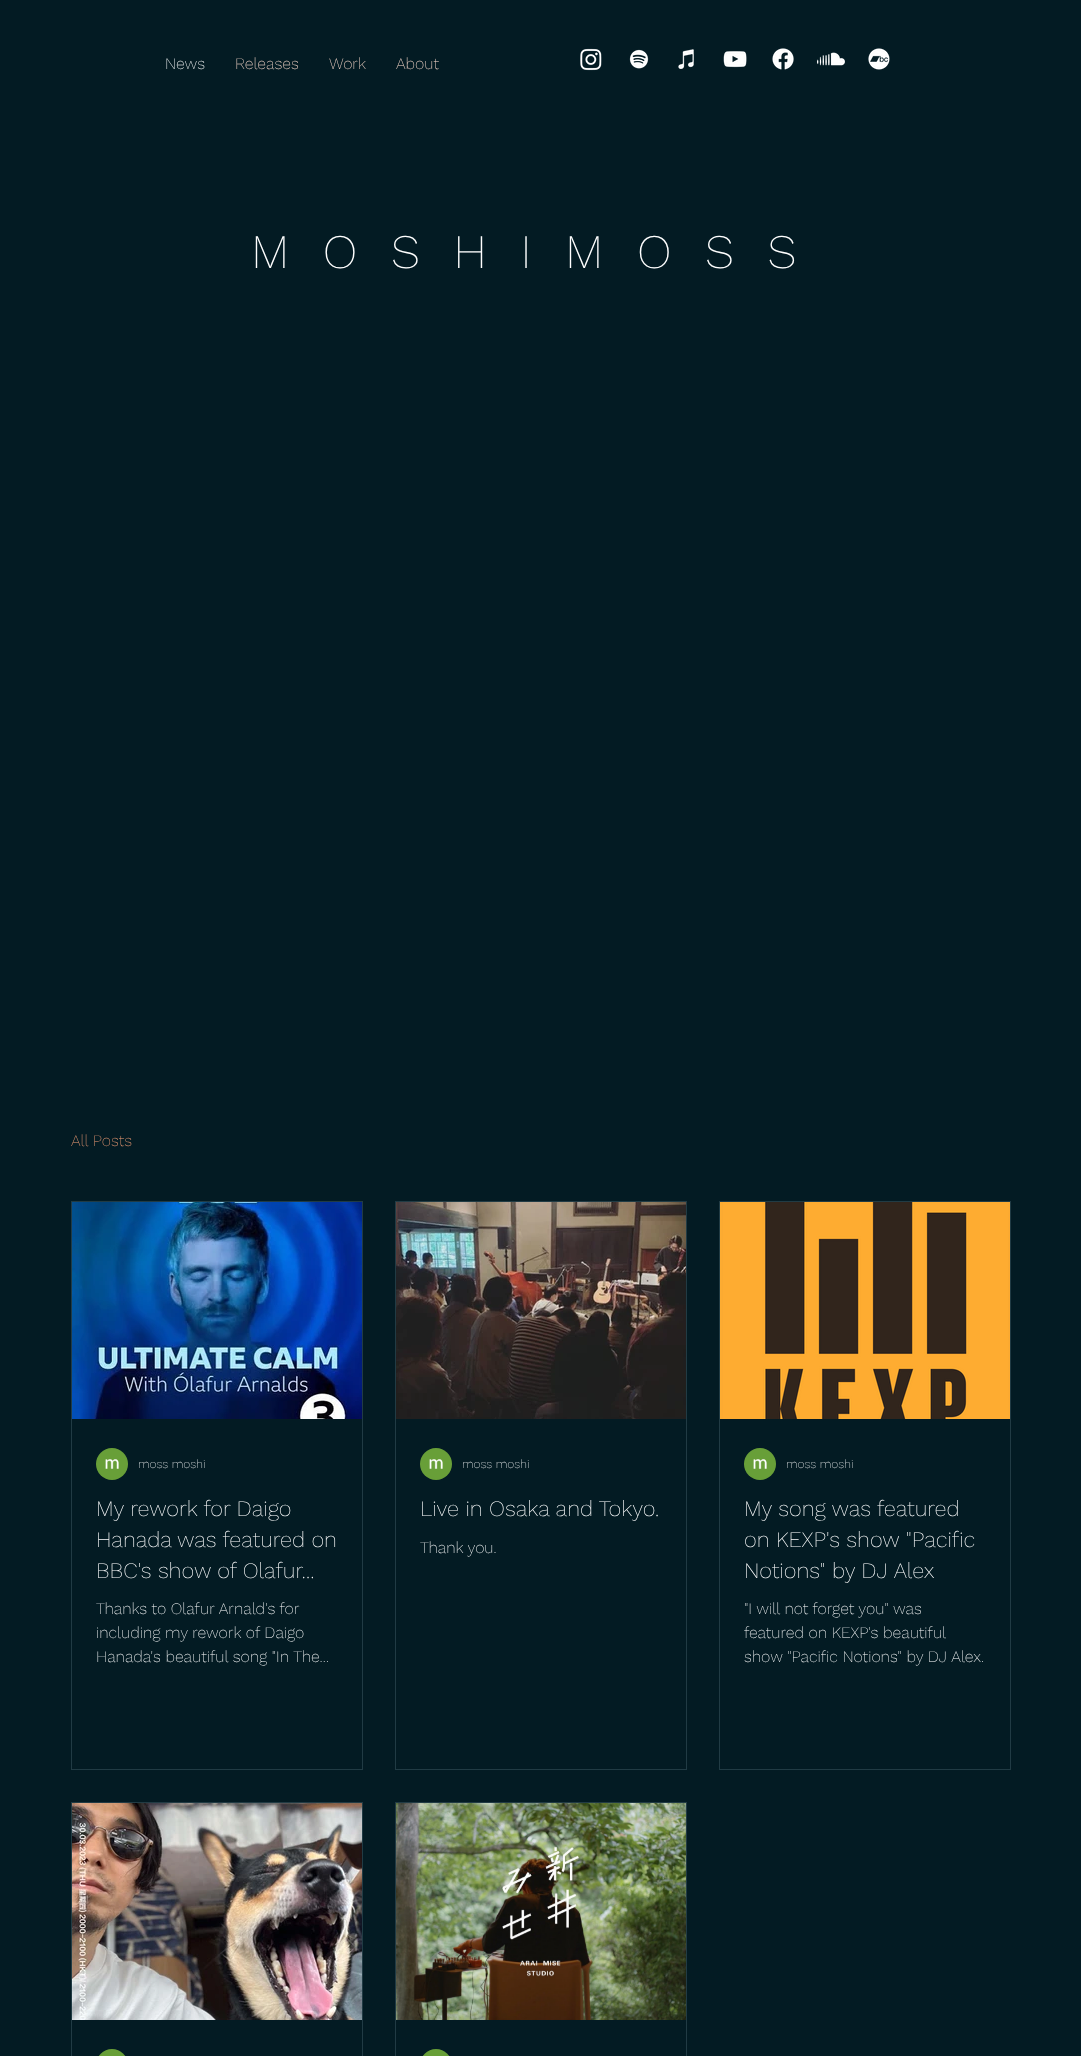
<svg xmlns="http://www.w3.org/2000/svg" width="1081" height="2056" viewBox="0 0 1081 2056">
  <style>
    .t1 { font: 200 16px Work Sans; fill: #fff; }
    .t2 { font: 200 16px Work Sans; fill: #ffdecf; }
    .t3 { font: 200 48px Work Sans; letter-spacing: 33.5px; fill: #fff; }
    .t4 { font: 200 16px Work Sans; fill: #f59f76; }
    .t5 { font: 200 12px Work Sans; fill: #fff; }
    .t6 { font: 200 22px Work Sans; fill: #fff; }
  </style>
  <rect width="100%" height="100%" fill="#031b23"/>
  <text x="165" y="69" class="t1">News</text>
  <text x="235" y="69" class="t2">Releases</text>
  <text x="329" y="69" class="t2">Work</text>
  <text x="396" y="69" class="t2">About</text>
  <image x="580" y="48" width="22" height="23" href="images/1.png"/>
  <image x="629" y="49" width="20" height="20" href="images/2.png"/>
  <image x="678" y="49" width="16" height="20" href="images/3.png"/>
  <image x="723" y="51" width="24" height="17" href="images/4.png"/>
  <image x="772" y="48" width="22" height="22" href="images/5.png"/>
  <image x="817" y="52" width="28" height="14" href="images/6.png"/>
  <image x="868" y="48" width="22" height="22" href="images/7.png"/>
  <text x="251" y="268" class="t3">MOSHIMOSS</text>
  <text x="71" y="1146" class="t4">All Posts</text>
  <rect x="71.5" y="1201.5" width="291" height="568" fill="none" stroke="#213b44"/>
  <image x="72" y="1202" width="290" height="217" href="images/8.png"/>
  <image x="96" y="1448" width="32" height="32" href="images/9.png"/>
  <text x="138" y="1468" class="t5">moss moshi</text>
  <text x="96" y="1516" class="t6">My rework for Daigo</text>
  <text x="96" y="1547" class="t6">Hanada</text>
  <text x="177" y="1547" class="t6">was featured on</text>
  <text x="96" y="1578" class="t6">BBC's show of Olafur…</text>
  <text x="96" y="1614" class="t1">Thanks to Olafur Arnald's for</text>
  <text x="96" y="1638" class="t1">including my rework of Daigo</text>
  <text x="96" y="1662" class="t1">Hanada's beautiful song "In The…</text>
  <rect x="395.5" y="1201.5" width="291" height="568" fill="none" stroke="#213b44"/>
  <image x="396" y="1202" width="290" height="217" href="images/10.png"/>
  <image x="420" y="1448" width="32" height="32" href="images/11.png"/>
  <text x="462" y="1468" class="t5">moss moshi</text>
  <text x="420" y="1516" class="t6">Live in Osaka and Tokyo.</text>
  <text x="420" y="1553" class="t1">Thank you.</text>
  <rect x="719.5" y="1201.5" width="291" height="568" fill="none" stroke="#213b44"/>
  <image x="720" y="1202" width="290" height="217" href="images/12.png"/>
  <image x="723" y="1202" width="285" height="217" href="images/13.png"/>
  <image x="744" y="1448" width="32" height="32" href="images/9.png"/>
  <text x="786" y="1468" class="t5">moss moshi</text>
  <text x="744" y="1516" class="t6">My song was featured</text>
  <text x="744" y="1547" class="t6">on KEXP's show "Pacific</text>
  <text x="744" y="1578" class="t6">Notions" by DJ Alex</text>
  <text x="744" y="1614" class="t1">"I will not forget you" was</text>
  <text x="744" y="1638" class="t1">featured on KEXP's beautiful</text>
  <text x="744" y="1662" class="t1">show "Pacific Notions" by DJ Alex.</text>
  <rect x="71.5" y="1802.5" width="291" height="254" fill="none" stroke="#213b44"/>
  <image x="72" y="1803" width="290" height="217" href="images/14.png"/>
  <image x="98" y="2049" width="28" height="7" href="images/15.png"/>
  <rect x="395.5" y="1802.5" width="291" height="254" fill="none" stroke="#213b44"/>
  <image x="396" y="1803" width="290" height="217" href="images/16.png"/>
  <image x="422" y="2049" width="28" height="7" href="images/15.png"/>
</svg>
